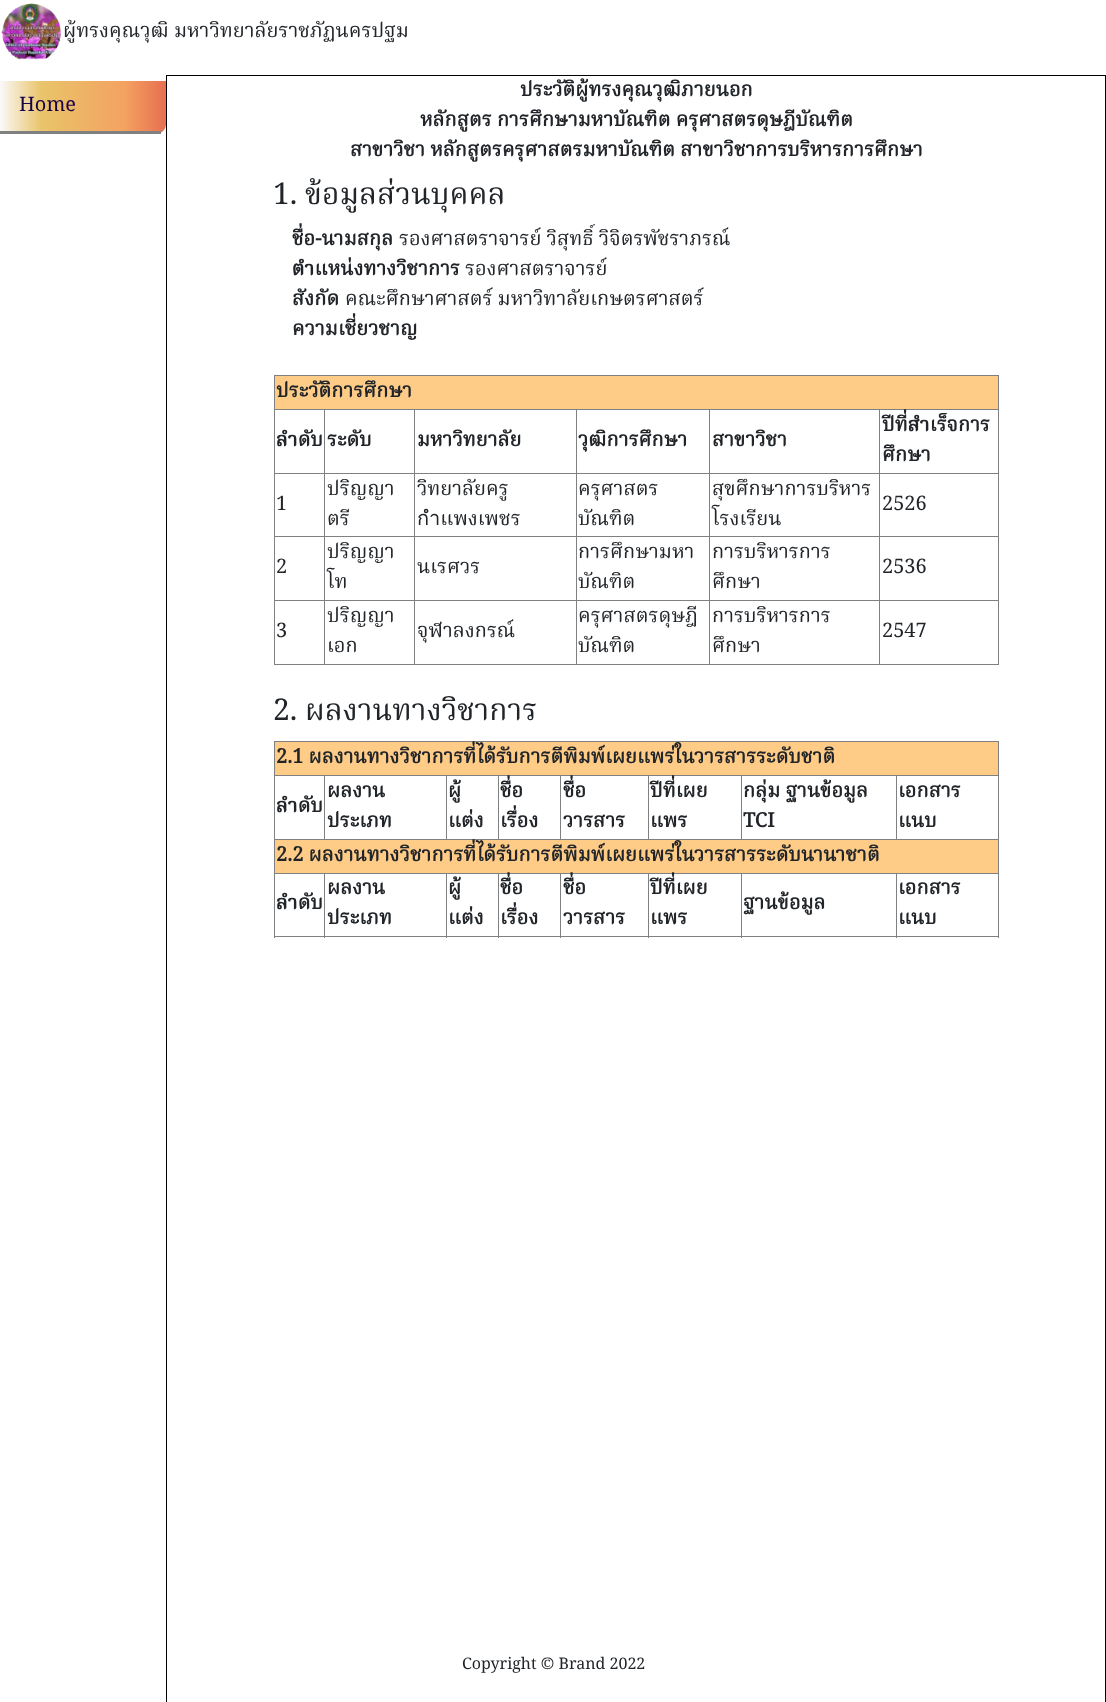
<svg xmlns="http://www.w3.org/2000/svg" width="1106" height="1702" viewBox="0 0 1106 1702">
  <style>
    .t1 { font: 20px Noto Serif Thai; fill: #212529; }
    .t2 { font: 20px Noto Serif Thai; fill: #160347; }
    .t3 { font: bold 20px Noto Serif Thai; fill: #212529; }
    .t4 { font: 30px Noto Serif Thai; fill: #212529; }
    .t5 { font: 16px Noto Serif Thai; fill: #212529; }
  </style>
  <defs>
    <linearGradient id="g1" gradientUnits="userSpaceOnUse" x1="0" y1="106" x2="166" y2="106"><stop offset="0" stop-color="#faf9f9"/><stop offset="0.25" stop-color="#e9c46a"/><stop offset="0.75" stop-color="#f4a261"/><stop offset="1" stop-color="#e76f51"/></linearGradient>
  </defs>
  <rect width="100%" height="100%" fill="#fff"/>
  <image x="1" y="3" width="60" height="57" href="images/1.png"/>
  <text x="63" y="37" class="t1">ผู้ทรงคุณวุฒิ มหาวิทยาลัยราชภัฏนครปฐม</text>
  <path d="M0 81H166V124C166 129.5 161.5 134 156 134H0Z" fill="url(#g1)"/>
  <rect x="0" y="131" width="161" height="3" fill="#808080"/>
  <text x="19" y="111" class="t2">Home</text>
  <rect x="166.5" y="75.5" width="939" height="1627" fill="none" stroke="#000"/>
  <text x="520" y="96" class="t3">ประวัติผู้ทรงคุณวุฒิภายนอก</text>
  <text x="420" y="126" class="t3">หลักสูตร การศึกษามหาบัณฑิต ครุศาสตรดุษฎีบัณฑิต</text>
  <text x="350" y="156" class="t3">สาขาวิชา หลักสูตรครุศาสตรมหาบัณฑิต สาขาวิชาการบริหารการศึกษา</text>
  <text x="273" y="204" class="t4">1. ข้อมูลส่วนบุคคล</text>
  <text x="292" y="245" class="t3">ชื่อ-นามสกุล</text>
  <text x="399" y="245" class="t1">รองศาสตราจารย์ วิสุทธิ์ วิจิตรพัชราภรณ์</text>
  <text x="292" y="275" class="t3">ตำแหน่งทางวิชาการ</text>
  <text x="465" y="275" class="t1">รองศาสตราจารย์</text>
  <text x="292" y="305" class="t3">สังกัด</text>
  <text x="345" y="305" class="t1">คณะศึกษาศาสตร์ มหาวิทาลัยเกษตรศาสตร์</text>
  <text x="292" y="335" class="t3">ความเชี่ยวชาญ</text>
  <rect x="274" y="375" width="725" height="1" fill="#808080"/>
  <rect x="998" y="375" width="1" height="290" fill="#808080"/>
  <rect x="274" y="664" width="725" height="1" fill="#808080"/>
  <rect x="274" y="375" width="1" height="290" fill="#808080"/>
  <rect x="275" y="376" width="723" height="33" fill="#fc8"/>
  <text x="276" y="397" class="t3">ประวัติการศึกษา</text>
  <rect x="879" y="409" width="120" height="1" fill="#808080"/>
  <rect x="879" y="473" width="120" height="1" fill="#808080"/>
  <rect x="879" y="536" width="120" height="1" fill="#808080"/>
  <rect x="879" y="600" width="120" height="1" fill="#808080"/>
  <rect x="879" y="600" width="1" height="65" fill="#808080"/>
  <rect x="709" y="600" width="171" height="1" fill="#808080"/>
  <rect x="879" y="536" width="1" height="65" fill="#808080"/>
  <rect x="709" y="536" width="171" height="1" fill="#808080"/>
  <rect x="879" y="473" width="1" height="65" fill="#808080"/>
  <rect x="709" y="473" width="171" height="1" fill="#808080"/>
  <rect x="879" y="409" width="1" height="65" fill="#808080"/>
  <rect x="709" y="409" width="171" height="1" fill="#808080"/>
  <rect x="709" y="600" width="1" height="65" fill="#808080"/>
  <rect x="576" y="600" width="134" height="1" fill="#808080"/>
  <rect x="709" y="536" width="1" height="65" fill="#808080"/>
  <rect x="576" y="536" width="134" height="1" fill="#808080"/>
  <rect x="709" y="473" width="1" height="65" fill="#808080"/>
  <rect x="576" y="473" width="134" height="1" fill="#808080"/>
  <rect x="709" y="409" width="1" height="65" fill="#808080"/>
  <rect x="576" y="409" width="134" height="1" fill="#808080"/>
  <rect x="576" y="600" width="1" height="65" fill="#808080"/>
  <rect x="414" y="600" width="164" height="1" fill="#808080"/>
  <rect x="576" y="536" width="1" height="65" fill="#808080"/>
  <rect x="414" y="536" width="164" height="1" fill="#808080"/>
  <rect x="576" y="473" width="1" height="65" fill="#808080"/>
  <rect x="414" y="473" width="164" height="1" fill="#808080"/>
  <rect x="576" y="409" width="1" height="65" fill="#808080"/>
  <rect x="414" y="409" width="164" height="1" fill="#808080"/>
  <rect x="414" y="600" width="1" height="65" fill="#808080"/>
  <rect x="324" y="600" width="91" height="1" fill="#808080"/>
  <rect x="414" y="536" width="1" height="65" fill="#808080"/>
  <rect x="324" y="536" width="91" height="1" fill="#808080"/>
  <rect x="414" y="473" width="1" height="65" fill="#808080"/>
  <rect x="324" y="473" width="91" height="1" fill="#808080"/>
  <rect x="414" y="409" width="1" height="65" fill="#808080"/>
  <rect x="324" y="409" width="91" height="1" fill="#808080"/>
  <rect x="324" y="600" width="1" height="65" fill="#808080"/>
  <rect x="274" y="600" width="51" height="1" fill="#808080"/>
  <rect x="324" y="536" width="1" height="65" fill="#808080"/>
  <rect x="274" y="536" width="51" height="1" fill="#808080"/>
  <rect x="324" y="473" width="1" height="65" fill="#808080"/>
  <rect x="274" y="473" width="51" height="1" fill="#808080"/>
  <rect x="324" y="409" width="1" height="65" fill="#808080"/>
  <rect x="274" y="409" width="51" height="1" fill="#808080"/>
  <text x="276" y="446" class="t3">ลำดับ</text>
  <text x="327" y="446" class="t3">ระดับ</text>
  <text x="417" y="446" class="t3">มหาวิทยาลัย</text>
  <text x="578" y="446" class="t3">วุฒิการศึกษา</text>
  <text x="712" y="446" class="t3">สาขาวิชา</text>
  <text x="882" y="431" class="t3">ปีที่สำเร็จการ</text>
  <text x="882" y="461" class="t3">ศึกษา</text>
  <text x="276" y="510" class="t1">1</text>
  <text x="327" y="495" class="t1">ปริญญา</text>
  <text x="327" y="525" class="t1">ตรี</text>
  <text x="417" y="495" class="t1">วิทยาลัยครู</text>
  <text x="417" y="525" class="t1">กำแพงเพชร</text>
  <text x="578" y="495" class="t1">ครุศาสตร</text>
  <text x="578" y="525" class="t1">บัณฑิต</text>
  <text x="712" y="495" class="t1">สุขศึกษาการบริหาร</text>
  <text x="712" y="525" class="t1">โรงเรียน</text>
  <text x="882" y="510" class="t1">2526</text>
  <text x="276" y="573" class="t1">2</text>
  <text x="327" y="558" class="t1">ปริญญา</text>
  <text x="327" y="588" class="t1">โท</text>
  <text x="417" y="573" class="t1">นเรศวร</text>
  <text x="578" y="558" class="t1">การศึกษามหา</text>
  <text x="578" y="588" class="t1">บัณฑิต</text>
  <text x="712" y="558" class="t1">การบริหารการ</text>
  <text x="712" y="588" class="t1">ศึกษา</text>
  <text x="882" y="573" class="t1">2536</text>
  <text x="276" y="637" class="t1">3</text>
  <text x="327" y="622" class="t1">ปริญญา</text>
  <text x="327" y="652" class="t1">เอก</text>
  <text x="417" y="637" class="t1">จุฬาลงกรณ์</text>
  <text x="578" y="622" class="t1">ครุศาสตรดุษฎี</text>
  <text x="578" y="652" class="t1">บัณฑิต</text>
  <text x="712" y="622" class="t1">การบริหารการ</text>
  <text x="712" y="652" class="t1">ศึกษา</text>
  <text x="882" y="637" class="t1">2547</text>
  <text x="273" y="720" class="t4">2. ผลงานทางวิชาการ</text>
  <rect x="274" y="741" width="725" height="1" fill="#808080"/>
  <rect x="998" y="741" width="1" height="197" fill="#808080"/>
  <rect x="274" y="936" width="725" height="1" fill="#808080"/>
  <rect x="274" y="741" width="1" height="197" fill="#808080"/>
  <rect x="275" y="742" width="723" height="33" fill="#fc8"/>
  <text x="276" y="763" class="t3">2.1 ผลงานทางวิชาการที่ได้รับการตีพิมพ์เผยแพร่ในวารสารระดับชาติ</text>
  <rect x="896" y="775" width="103" height="1" fill="#808080"/>
  <rect x="274" y="839" width="725" height="1" fill="#808080"/>
  <rect x="896" y="775" width="1" height="65" fill="#808080"/>
  <rect x="741" y="775" width="157" height="1" fill="#808080"/>
  <rect x="741" y="775" width="1" height="65" fill="#808080"/>
  <rect x="648" y="775" width="95" height="1" fill="#808080"/>
  <rect x="648" y="775" width="1" height="65" fill="#808080"/>
  <rect x="560" y="775" width="89" height="1" fill="#808080"/>
  <rect x="560" y="775" width="1" height="65" fill="#808080"/>
  <rect x="498" y="775" width="63" height="1" fill="#808080"/>
  <rect x="498" y="775" width="1" height="65" fill="#808080"/>
  <rect x="446" y="775" width="53" height="1" fill="#808080"/>
  <rect x="446" y="775" width="1" height="65" fill="#808080"/>
  <rect x="324" y="775" width="124" height="1" fill="#808080"/>
  <rect x="324" y="775" width="1" height="65" fill="#808080"/>
  <rect x="274" y="775" width="51" height="1" fill="#808080"/>
  <text x="276" y="812" class="t3">ลำดับ</text>
  <text x="327" y="797" class="t3">ผลงาน</text>
  <text x="327" y="827" class="t3">ประเภท</text>
  <text x="448" y="797" class="t3">ผู้</text>
  <text x="448" y="827" class="t3">แต่ง</text>
  <text x="500" y="797" class="t3">ชื่อ</text>
  <text x="500" y="827" class="t3">เรื่อง</text>
  <text x="563" y="797" class="t3">ชื่อ</text>
  <text x="563" y="827" class="t3">วารสาร</text>
  <text x="650" y="797" class="t3">ปีที่เผย</text>
  <text x="650" y="827" class="t3">แพร</text>
  <text x="743" y="797" class="t3">กลุ่ม ฐานข้อมูล</text>
  <text x="743" y="827" class="t3">TCI</text>
  <text x="898" y="797" class="t3">เอกสาร</text>
  <text x="898" y="827" class="t3">แนบ</text>
  <rect x="275" y="840" width="723" height="33" fill="#fc8"/>
  <text x="276" y="861" class="t3">2.2 ผลงานทางวิชาการที่ได้รับการตีพิมพ์เผยแพร่ในวารสารระดับนานาชาติ</text>
  <rect x="896" y="873" width="103" height="1" fill="#808080"/>
  <rect x="896" y="873" width="1" height="65" fill="#808080"/>
  <rect x="741" y="873" width="157" height="1" fill="#808080"/>
  <rect x="741" y="873" width="1" height="65" fill="#808080"/>
  <rect x="648" y="873" width="95" height="1" fill="#808080"/>
  <rect x="648" y="873" width="1" height="65" fill="#808080"/>
  <rect x="560" y="873" width="89" height="1" fill="#808080"/>
  <rect x="560" y="873" width="1" height="65" fill="#808080"/>
  <rect x="498" y="873" width="63" height="1" fill="#808080"/>
  <rect x="498" y="873" width="1" height="65" fill="#808080"/>
  <rect x="446" y="873" width="53" height="1" fill="#808080"/>
  <rect x="446" y="873" width="1" height="65" fill="#808080"/>
  <rect x="324" y="873" width="124" height="1" fill="#808080"/>
  <rect x="324" y="873" width="1" height="65" fill="#808080"/>
  <rect x="274" y="873" width="51" height="1" fill="#808080"/>
  <text x="276" y="909" class="t3">ลำดับ</text>
  <text x="327" y="894" class="t3">ผลงาน</text>
  <text x="327" y="924" class="t3">ประเภท</text>
  <text x="448" y="894" class="t3">ผู้</text>
  <text x="448" y="924" class="t3">แต่ง</text>
  <text x="500" y="894" class="t3">ชื่อ</text>
  <text x="500" y="924" class="t3">เรื่อง</text>
  <text x="563" y="894" class="t3">ชื่อ</text>
  <text x="563" y="924" class="t3">วารสาร</text>
  <text x="650" y="894" class="t3">ปีที่เผย</text>
  <text x="650" y="924" class="t3">แพร</text>
  <text x="743" y="909" class="t3">ฐานข้อมูล</text>
  <text x="898" y="894" class="t3">เอกสาร</text>
  <text x="898" y="924" class="t3">แนบ</text>
  <text x="462" y="1669" class="t5">Copyright © Brand 2022</text>
</svg>
